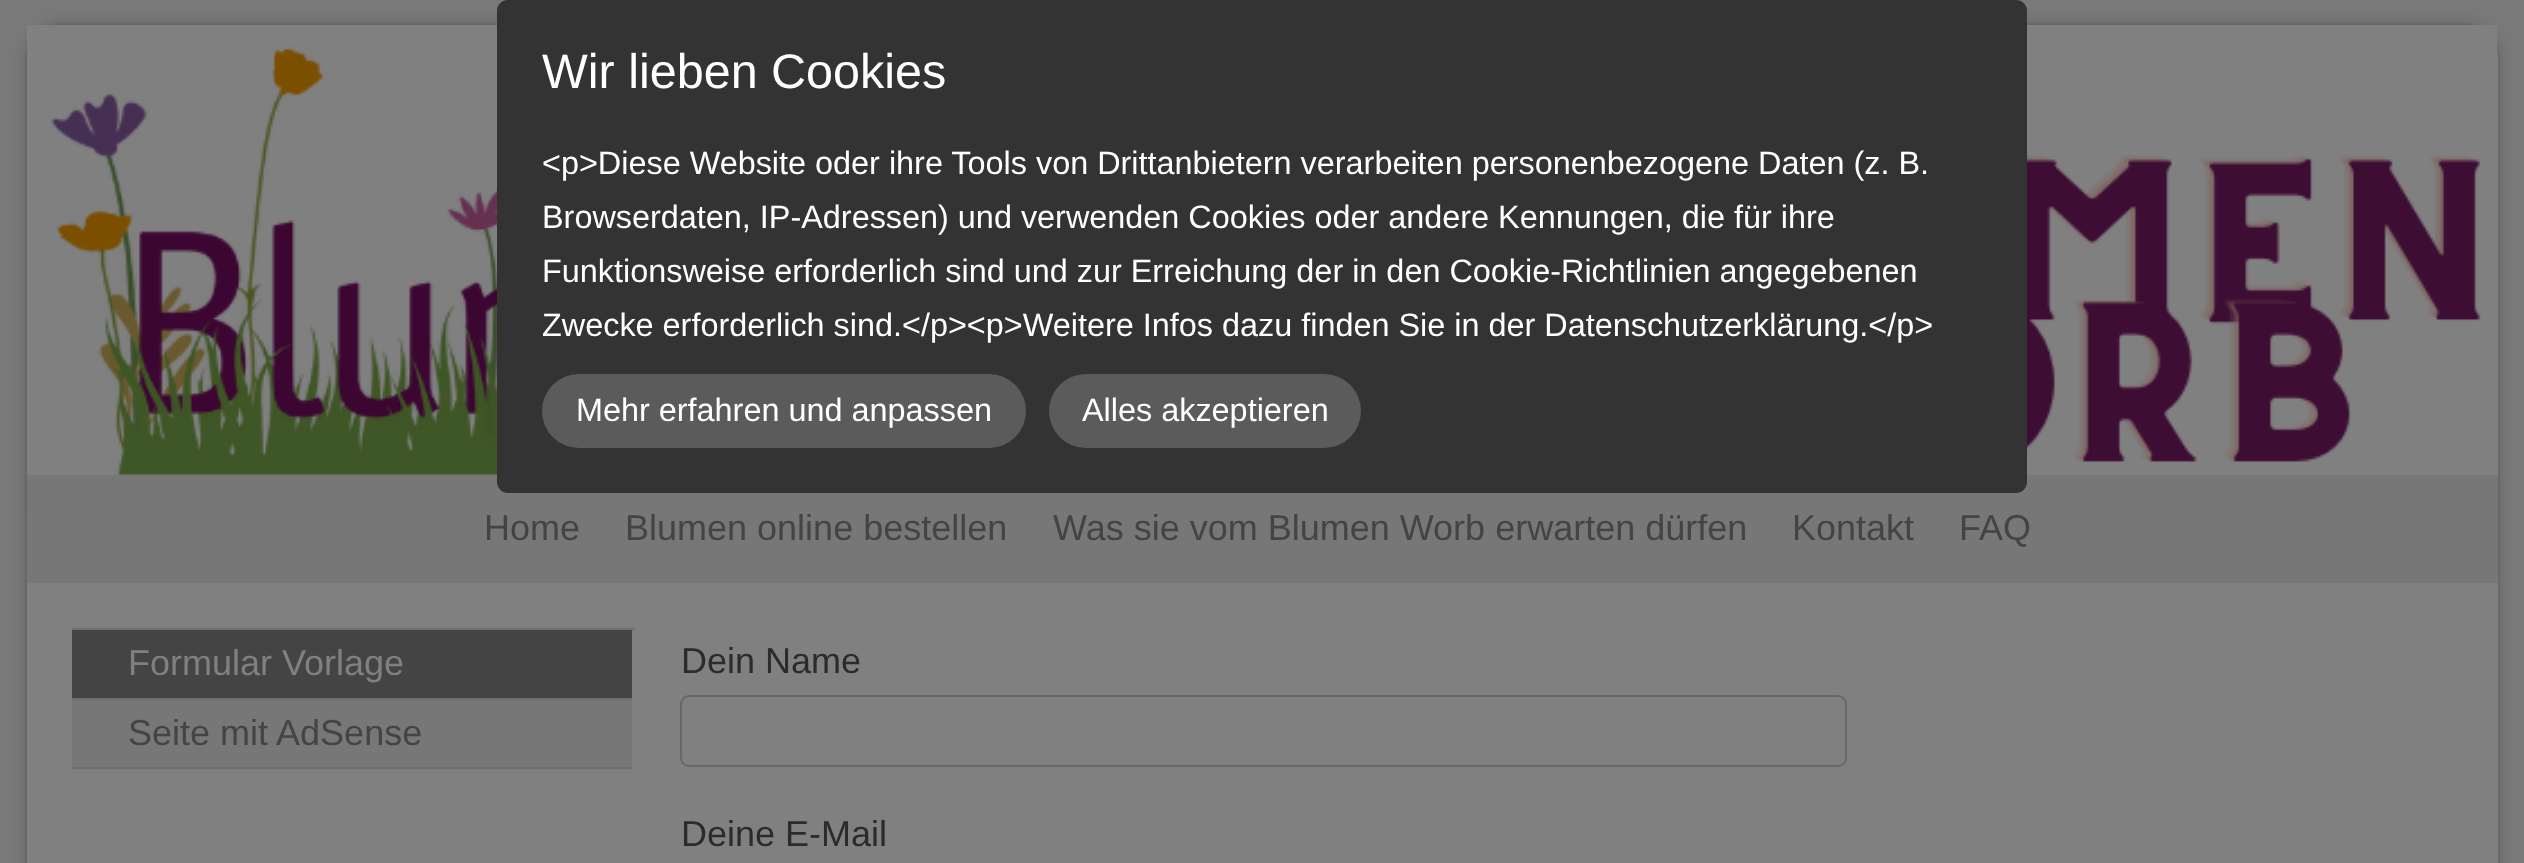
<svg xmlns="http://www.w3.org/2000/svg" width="2524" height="863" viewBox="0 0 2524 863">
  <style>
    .t1 { font: 48.5px Liberation Sans; fill: #fff; }
    .t2 { font: 32.4px Liberation Sans; fill: #fff; }
    .t3 { font: 36px Liberation Sans; fill: #444; }
    .t4 { font: 36px Liberation Sans; fill: #808080; }
    .t5 { font: 36px Liberation Sans; fill: #2b2b2b; }
  </style>
  <rect width="100%" height="100%" fill="#797979"/>
  <rect x="25" y="23" width="2475" height="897" rx="36" fill="#00000026" filter="blur(7px)"/>
  <rect x="26" y="24" width="2473" height="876" rx="35" fill="none" stroke="#686868" stroke-width="2"/>
  <path d="M63 25H2462C2482 25 2498 41 2498 61V475H27V61C27 41 43 25 63 25Z" fill="#808080"/>
  <image x="27" y="25" width="2471" height="450" href="images/1.png"/>
  <rect x="27" y="475" width="2471" height="108" fill="#777"/>
  <rect x="497" y="0" width="1530" height="493" rx="11" fill="#333"/>
  <text x="542" y="88" class="t1">Wir lieben Cookies</text>
  <text x="542" y="174" class="t2">&lt;p&gt;Diese Website oder ihre Tools von Drittanbietern verarbeiten personenbezogene Daten (z. B.</text>
  <text x="542" y="228" class="t2">Browserdaten, IP-Adressen) und verwenden Cookies oder andere Kennungen, die für ihre</text>
  <text x="542" y="282" class="t2">Funktionsweise erforderlich sind und zur Erreichung der in den Cookie-Richtlinien angegebenen</text>
  <text x="542" y="336" class="t2">Zwecke erforderlich sind.&lt;/p&gt;&lt;p&gt;Weitere Infos dazu finden Sie in der Datenschutzerklärung.&lt;/p&gt;</text>
  <rect x="542" y="374" width="484" height="74" rx="37" fill="#5b5b5b"/>
  <text x="576" y="421" class="t2">Mehr erfahren und anpassen</text>
  <rect x="1049" y="374" width="312" height="74" rx="37" fill="#5b5b5b"/>
  <text x="1082" y="421" class="t2">Alles akzeptieren</text>
  <text x="484" y="540" class="t3">Home</text>
  <text x="625" y="540" class="t3">Blumen online bestellen</text>
  <text x="1053" y="540" class="t3">Was sie vom Blumen Worb erwarten dürfen</text>
  <text x="1792" y="540" class="t3">Kontakt</text>
  <text x="1959" y="540" class="t3">FAQ</text>
  <rect x="27" y="583" width="2471" height="280" fill="#808080"/>
  <rect x="72" y="628" width="563" height="2" fill="#6f6f6f"/>
  <rect x="72" y="630" width="560" height="68" fill="#444"/>
  <rect x="72" y="698" width="560" height="2" fill="#6f6f6f"/>
  <text x="128" y="675" class="t4">Formular Vorlage</text>
  <rect x="72" y="700" width="560" height="70" fill="#777"/>
  <rect x="72" y="767" width="560" height="2" fill="#6f6f6f"/>
  <text x="128" y="745" class="t3">Seite mit AdSense</text>
  <text x="681" y="673" class="t5">Dein Name</text>
  <rect x="681" y="696" width="1165" height="70" rx="8" fill="none" stroke="#686868" stroke-width="2"/>
  <text x="681" y="846" class="t5">Deine E-Mail</text>
</svg>
